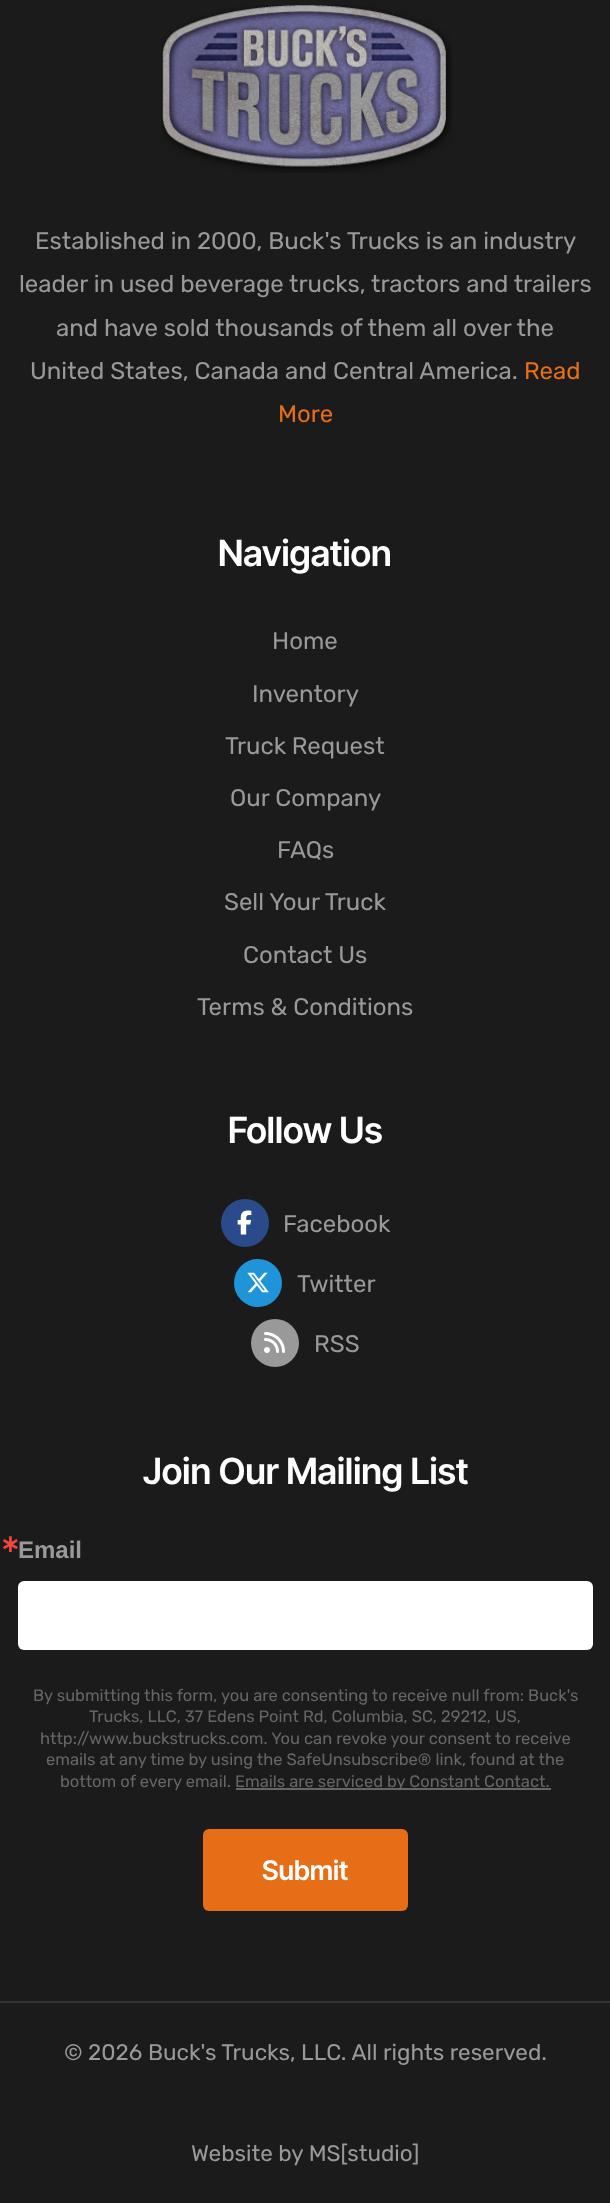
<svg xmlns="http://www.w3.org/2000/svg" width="610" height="2203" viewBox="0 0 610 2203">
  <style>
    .t1 { font: 24px Rubik; fill: #999; }
    .t2 { font: 24px Rubik; fill: #e56e17; }
    .t3 { font: 600 36px Inter Tight; fill: #fff; }
    .t4 { font: bold 24px DejaVu Sans; fill: #f5463b; }
    .t5 { font: bold 24px Liberation Sans; fill: #999; }
    .t6 { font: 16.5px Rubik; fill: #666; }
    .t7 { font: 600 27px Inter Tight; fill: #fff; }
    .t8 { font: 22.5px Rubik; fill: #999; }
  </style>
  <rect width="100%" height="100%" fill="#1b1b1b"/>
  <image x="161" y="5" width="291" height="168" href="images/1.png"/>
  <text x="35" y="249" class="t1">Established in 2000, Buck's Trucks is an industry</text>
  <text x="19" y="292" class="t1">leader in used beverage trucks, tractors and trailers</text>
  <text x="56" y="336" class="t1">and have sold thousands of them all over the</text>
  <text x="30" y="379" class="t1">United States, Canada and Central America.</text>
  <text x="524" y="379" class="t2">Read</text>
  <text x="278" y="422" class="t2">More</text>
  <text x="218" y="566" class="t3">Navigation</text>
  <text x="272" y="649" class="t1">Home</text>
  <text x="252" y="702" class="t1">Inventory</text>
  <text x="225" y="754" class="t1">Truck Request</text>
  <text x="230" y="806" class="t1">Our Company</text>
  <text x="277" y="858" class="t1">FAQs</text>
  <text x="224" y="910" class="t1">Sell Your Truck</text>
  <text x="243" y="963" class="t1">Contact Us</text>
  <text x="197" y="1015" class="t1">Terms &amp; Conditions</text>
  <text x="228" y="1143" class="t3">Follow Us</text>
  <circle cx="245" cy="1223" r="24" fill="#2b4a8b"/>
  <image x="237" y="1210" width="15" height="25" href="images/2.png"/>
  <text x="283" y="1232" class="t1">Facebook</text>
  <circle cx="258" cy="1283" r="24" fill="#1f94d9"/>
  <image x="247" y="1272" width="22" height="21" href="images/3.png"/>
  <text x="297" y="1292" class="t1">Twitter</text>
  <circle cx="275" cy="1343" r="24" fill="#999"/>
  <image x="264" y="1332" width="21" height="21" href="images/4.png"/>
  <text x="314" y="1352" class="t1">RSS</text>
  <text x="143" y="1484" class="t3">Join Our Mailing List</text>
  <text x="0" y="1552" class="t4">∗</text>
  <text x="18" y="1558" class="t5">Email</text>
  <rect x="18" y="1581" width="575" height="69" rx="6" fill="#fff"/>
  <text x="33" y="1701" class="t6">By submitting this form, you are consenting to receive null from: Buck's</text>
  <text x="89" y="1722" class="t6">Trucks, LLC, 37 Edens Point Rd, Columbia, SC, 29212, US,</text>
  <text x="40" y="1744" class="t6">http://www.buckstrucks.com. You can revoke your consent to receive</text>
  <text x="46" y="1765" class="t6">emails at any time by using the SafeUnsubscribe® link, found at the</text>
  <text x="60" y="1787" class="t6">bottom of every email.</text>
  <rect x="236" y="1788" width="315" height="2" fill="#666"/>
  <text x="235" y="1787" class="t6">Emails are serviced by Constant Contact.</text>
  <rect x="203" y="1829" width="205" height="82" rx="6" fill="#e56e17"/>
  <text x="262" y="1880" class="t7">Submit</text>
  <rect x="0" y="2001" width="610" height="2" fill="#323232"/>
  <text x="64" y="2060" class="t8">© 2026 Buck's Trucks, LLC. All rights reserved.</text>
  <text x="191" y="2161" class="t8">Website by MS[studio]</text>
</svg>
